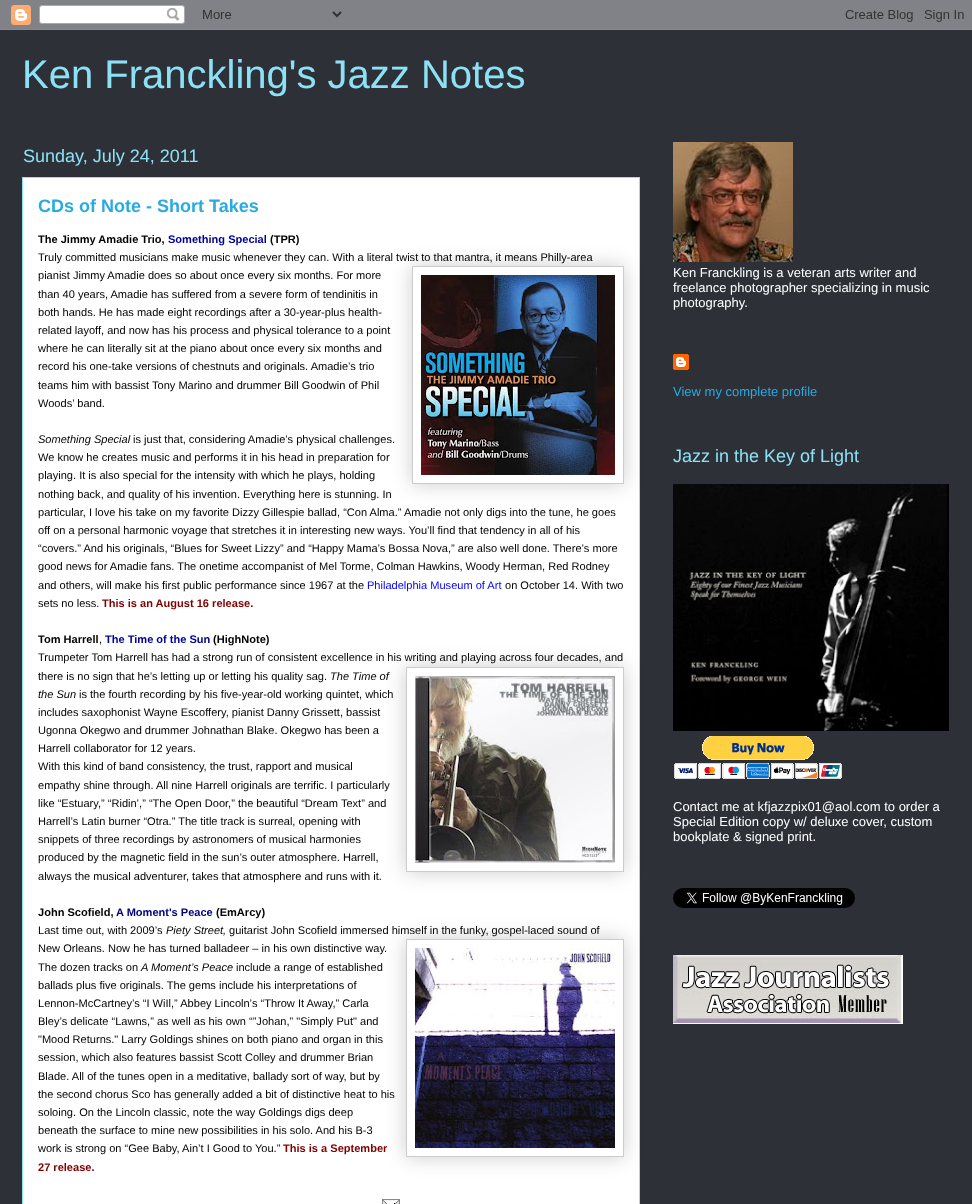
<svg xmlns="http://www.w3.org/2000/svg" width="972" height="1204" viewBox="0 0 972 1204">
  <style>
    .t1 { font: 40px Liberation Sans; fill: #8ce1f5; }
    .t2 { font: 18px Liberation Sans; fill: #8ce1f5; }
    .t3 { font: bold 18px Liberation Sans; fill: #29aae1; }
    .t4 { font: bold 11.05px Liberation Sans; fill: #000; }
    .t5 { font: bold 11.05px Liberation Sans; fill: #009; }
    .t6 { font: 11.05px Liberation Sans; fill: #000; }
    .t7 { font: italic 11.05px Liberation Sans; fill: #000; }
    .t8 { font: 11.05px Liberation Sans; fill: #00f; }
    .t9 { font: bold 11.05px Liberation Sans; fill: #800000; }
    .t10 { font: bold 11.05px Liberation Sans; fill: #000080; }
    .t11 { font: 13px Liberation Sans; fill: #fff; }
    .t12 { font: 13px Liberation Sans; fill: #29aae1; }
  </style>
  <defs>
    <clipPath id="clip1"><path d="M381 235H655V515H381ZM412 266H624V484H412Z" clip-rule="evenodd"/></clipPath>
    <clipPath id="clip2"><path d="M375 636H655V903H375ZM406 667H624V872H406Z" clip-rule="evenodd"/></clipPath>
    <clipPath id="clip3"><path d="M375 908H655V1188H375ZM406 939H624V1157H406Z" clip-rule="evenodd"/></clipPath>
  </defs>
  <rect width="100%" height="100%" fill="#2d3037"/>
  <image x="0" y="0" width="972" height="30" href="images/1.png"/>
  <text x="22" y="88" class="t1">Ken Franckling's Jazz Notes</text>
  <rect x="22.5" y="177.5" width="617" height="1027" fill="#fff" stroke="#8ce1f5"/>
  <text x="23" y="162" class="t2">Sunday, July 24, 2011</text>
  <text x="38" y="212" class="t3">CDs of Note - Short Takes</text>
  <text x="38" y="243" class="t4">The Jimmy Amadie Trio,</text>
  <text x="168" y="243" class="t5">Something Special</text>
  <text x="270" y="243" class="t4">(TPR)</text>
  <g clip-path="url(#clip1)">
    <rect x="412" y="266" width="212" height="218" fill="#00000033" filter="blur(10px)"/>
  </g>
  <rect x="412.5" y="266.5" width="211" height="217" fill="none" stroke="#ccc"/>
  <image x="421" y="275" width="194" height="200" href="images/2.png"/>
  <text x="38" y="261" class="t6">Truly committed musicians make music whenever they can. With a literal twist to that mantra, it means Philly-area</text>
  <text x="38" y="279" class="t6">pianist Jimmy Amadie does so about once every six months. For more</text>
  <text x="38" y="298" class="t6">than 40 years, Amadie has suffered from a severe form of tendinitis in</text>
  <text x="38" y="316" class="t6">both hands. He has made eight recordings after a 30-year-plus health-</text>
  <text x="38" y="334" class="t6">related layoff, and now has his process and physical tolerance to a point</text>
  <text x="38" y="352" class="t6">where he can literally sit at the piano about once every six months and</text>
  <text x="38" y="370" class="t6">record his one-take versions of chestnuts and originals. Amadie’s trio</text>
  <text x="38" y="389" class="t6">teams him with bassist Tony Marino and drummer Bill Goodwin of Phil</text>
  <text x="38" y="407" class="t6">Woods’ band.</text>
  <text x="38" y="443" class="t7">Something Special</text>
  <text x="133" y="443" class="t6">is just that, considering Amadie’s physical challenges.</text>
  <text x="38" y="461" class="t6">We know he creates music and performs it in his head in preparation for</text>
  <text x="38" y="479" class="t6">playing. It is also special for the intensity with which he plays, holding</text>
  <text x="38" y="498" class="t6">nothing back, and quality of his invention. Everything here is stunning. In</text>
  <text x="38" y="516" class="t6">particular, I love his take on my favorite Dizzy Gillespie ballad, “Con Alma.” Amadie not only digs into the tune, he goes</text>
  <text x="38" y="534" class="t6">off on a personal harmonic voyage that stretches it in interesting new ways. You’ll find that tendency in all of his</text>
  <text x="38" y="552" class="t6">“covers.” And his originals, “Blues for Sweet Lizzy” and “Happy Mama’s Bossa Nova,” are also well done. There’s more</text>
  <text x="38" y="570" class="t6">good news for Amadie fans. The onetime accompanist of Mel Torme, Colman Hawkins, Woody Herman, Red Rodney</text>
  <text x="38" y="589" class="t6">and others, will make his first public performance since 1967 at the</text>
  <text x="367" y="589" class="t8">Philadelphia Museum of Art</text>
  <text x="505" y="589" class="t6">on October 14. With two</text>
  <text x="38" y="607" class="t6">sets no less.</text>
  <text x="102" y="607" class="t9">This is an August 16 release.</text>
  <text x="38" y="643" class="t4">Tom Harrell</text>
  <text x="99" y="643" class="t6">,</text>
  <text x="105" y="643" class="t5">The Time of the Sun</text>
  <text x="213" y="643" class="t4">(HighNote)</text>
  <g clip-path="url(#clip2)">
    <rect x="406" y="667" width="218" height="205" fill="#00000033" filter="blur(10px)"/>
  </g>
  <rect x="406.5" y="667.5" width="217" height="204" fill="none" stroke="#ccc"/>
  <image x="415" y="676" width="200" height="187" href="images/3.png"/>
  <text x="38" y="661" class="t6">Trumpeter Tom Harrell has had a strong run of consistent excellence in his writing and playing across four decades, and</text>
  <text x="38" y="680" class="t6">there is no sign that he’s letting up or letting his quality sag.</text>
  <text x="330" y="680" class="t7">The Time of</text>
  <text x="38" y="698" class="t7">the Sun</text>
  <text x="79" y="698" class="t6">is the fourth recording by his five-year-old working quintet, which</text>
  <text x="38" y="716" class="t6">includes saxophonist Wayne Escoffery, pianist Danny Grissett, bassist</text>
  <text x="38" y="734" class="t6">Ugonna Okegwo and drummer Johnathan Blake. Okegwo has been a</text>
  <text x="38" y="752" class="t6">Harrell collaborator for 12 years.</text>
  <text x="38" y="770" class="t6">With this kind of band consistency, the trust, rapport and musical</text>
  <text x="38" y="789" class="t6">empathy shine through. All nine Harrell originals are terrific. I particularly</text>
  <text x="38" y="807" class="t6">like “Estuary,” “Ridin’,” “The Open Door,” the beautiful “Dream Text” and</text>
  <text x="38" y="825" class="t6">Harrell’s Latin burner “Otra.” The title track is surreal, opening with</text>
  <text x="38" y="843" class="t6">snippets of three recordings by astronomers of musical harmonies</text>
  <text x="38" y="861" class="t6">produced by the magnetic field in the sun’s outer atmosphere. Harrell,</text>
  <text x="38" y="880" class="t6">always the musical adventurer, takes that atmosphere and runs with it.</text>
  <text x="38" y="916" class="t4">John Scofield,</text>
  <text x="116" y="916" class="t10">A Moment's Peace</text>
  <text x="216" y="916" class="t4">(EmArcy)</text>
  <text x="38" y="934" class="t6">Last time out, with 2009’s</text>
  <text x="166" y="934" class="t7">Piety Street,</text>
  <g clip-path="url(#clip3)">
    <rect x="406" y="939" width="218" height="218" fill="#00000033" filter="blur(10px)"/>
  </g>
  <rect x="406.5" y="939.5" width="217" height="217" fill="none" stroke="#ccc"/>
  <image x="415" y="948" width="200" height="200" href="images/4.png"/>
  <text x="229" y="934" class="t6">guitarist John Scofield immersed himself in the funky, gospel-laced sound of</text>
  <text x="38" y="952" class="t6">New Orleans. Now he has turned balladeer – in his own distinctive way.</text>
  <text x="38" y="971" class="t6">The dozen tracks on</text>
  <text x="141" y="971" class="t7">A Moment’s Peace</text>
  <text x="236" y="971" class="t6">include a range of established</text>
  <text x="38" y="989" class="t6">ballads plus five originals. The gems include his interpretations of</text>
  <text x="38" y="1007" class="t6">Lennon-McCartney’s “I WiIl,” Abbey Lincoln’s “Throw It Away,” Carla</text>
  <text x="38" y="1025" class="t6">Bley’s delicate “Lawns,” as well as his own “”Johan,” "Simply Put" and</text>
  <text x="38" y="1043" class="t6">"Mood Returns." Larry Goldings shines on both piano and organ in this</text>
  <text x="38" y="1061" class="t6">session, which also features bassist Scott Colley and drummer Brian</text>
  <text x="38" y="1080" class="t6">Blade. All of the tunes open in a meditative, ballady sort of way, but by</text>
  <text x="38" y="1098" class="t6">the second chorus Sco has generally added a bit of distinctive heat to his</text>
  <text x="38" y="1116" class="t6">soloing. On the Lincoln classic, note the way Goldings digs deep</text>
  <text x="38" y="1134" class="t6">beneath the surface to mine new possibilities in his solo. And his B-3</text>
  <text x="38" y="1152" class="t6">work is strong on “Gee Baby, Ain’t I Good to You.”</text>
  <text x="283" y="1152" class="t9">This is a September</text>
  <text x="38" y="1171" class="t9">27 release.</text>
  <image x="382" y="1199" width="18" height="5" href="images/5.png"/>
  <image x="673" y="142" width="120" height="120" href="images/6.png"/>
  <text x="673" y="277" class="t11">Ken Franckling is a veteran arts writer and</text>
  <text x="673" y="292" class="t11">freelance photographer specializing in music</text>
  <text x="673" y="307" class="t11">photography.</text>
  <image x="673" y="354" width="16" height="16" href="images/7.png"/>
  <text x="673" y="396" class="t12">View my complete profile</text>
  <text x="673" y="462" class="t2">Jazz in the Key of Light</text>
  <image x="673" y="484" width="276" height="247" href="images/8.png"/>
  <image x="674" y="736" width="168" height="43" href="images/9.png"/>
  <text x="673" y="811" class="t11">Contact me at kfjazzpix01@aol.com to order a</text>
  <text x="673" y="826" class="t11">Special Edition copy w/ deluxe cover, custom</text>
  <text x="673" y="841" class="t11">bookplate &amp; signed print.</text>
  <image x="673" y="888" width="182" height="20" href="images/10.png"/>
  <image x="673" y="955" width="230" height="69" href="images/11.png"/>
</svg>
